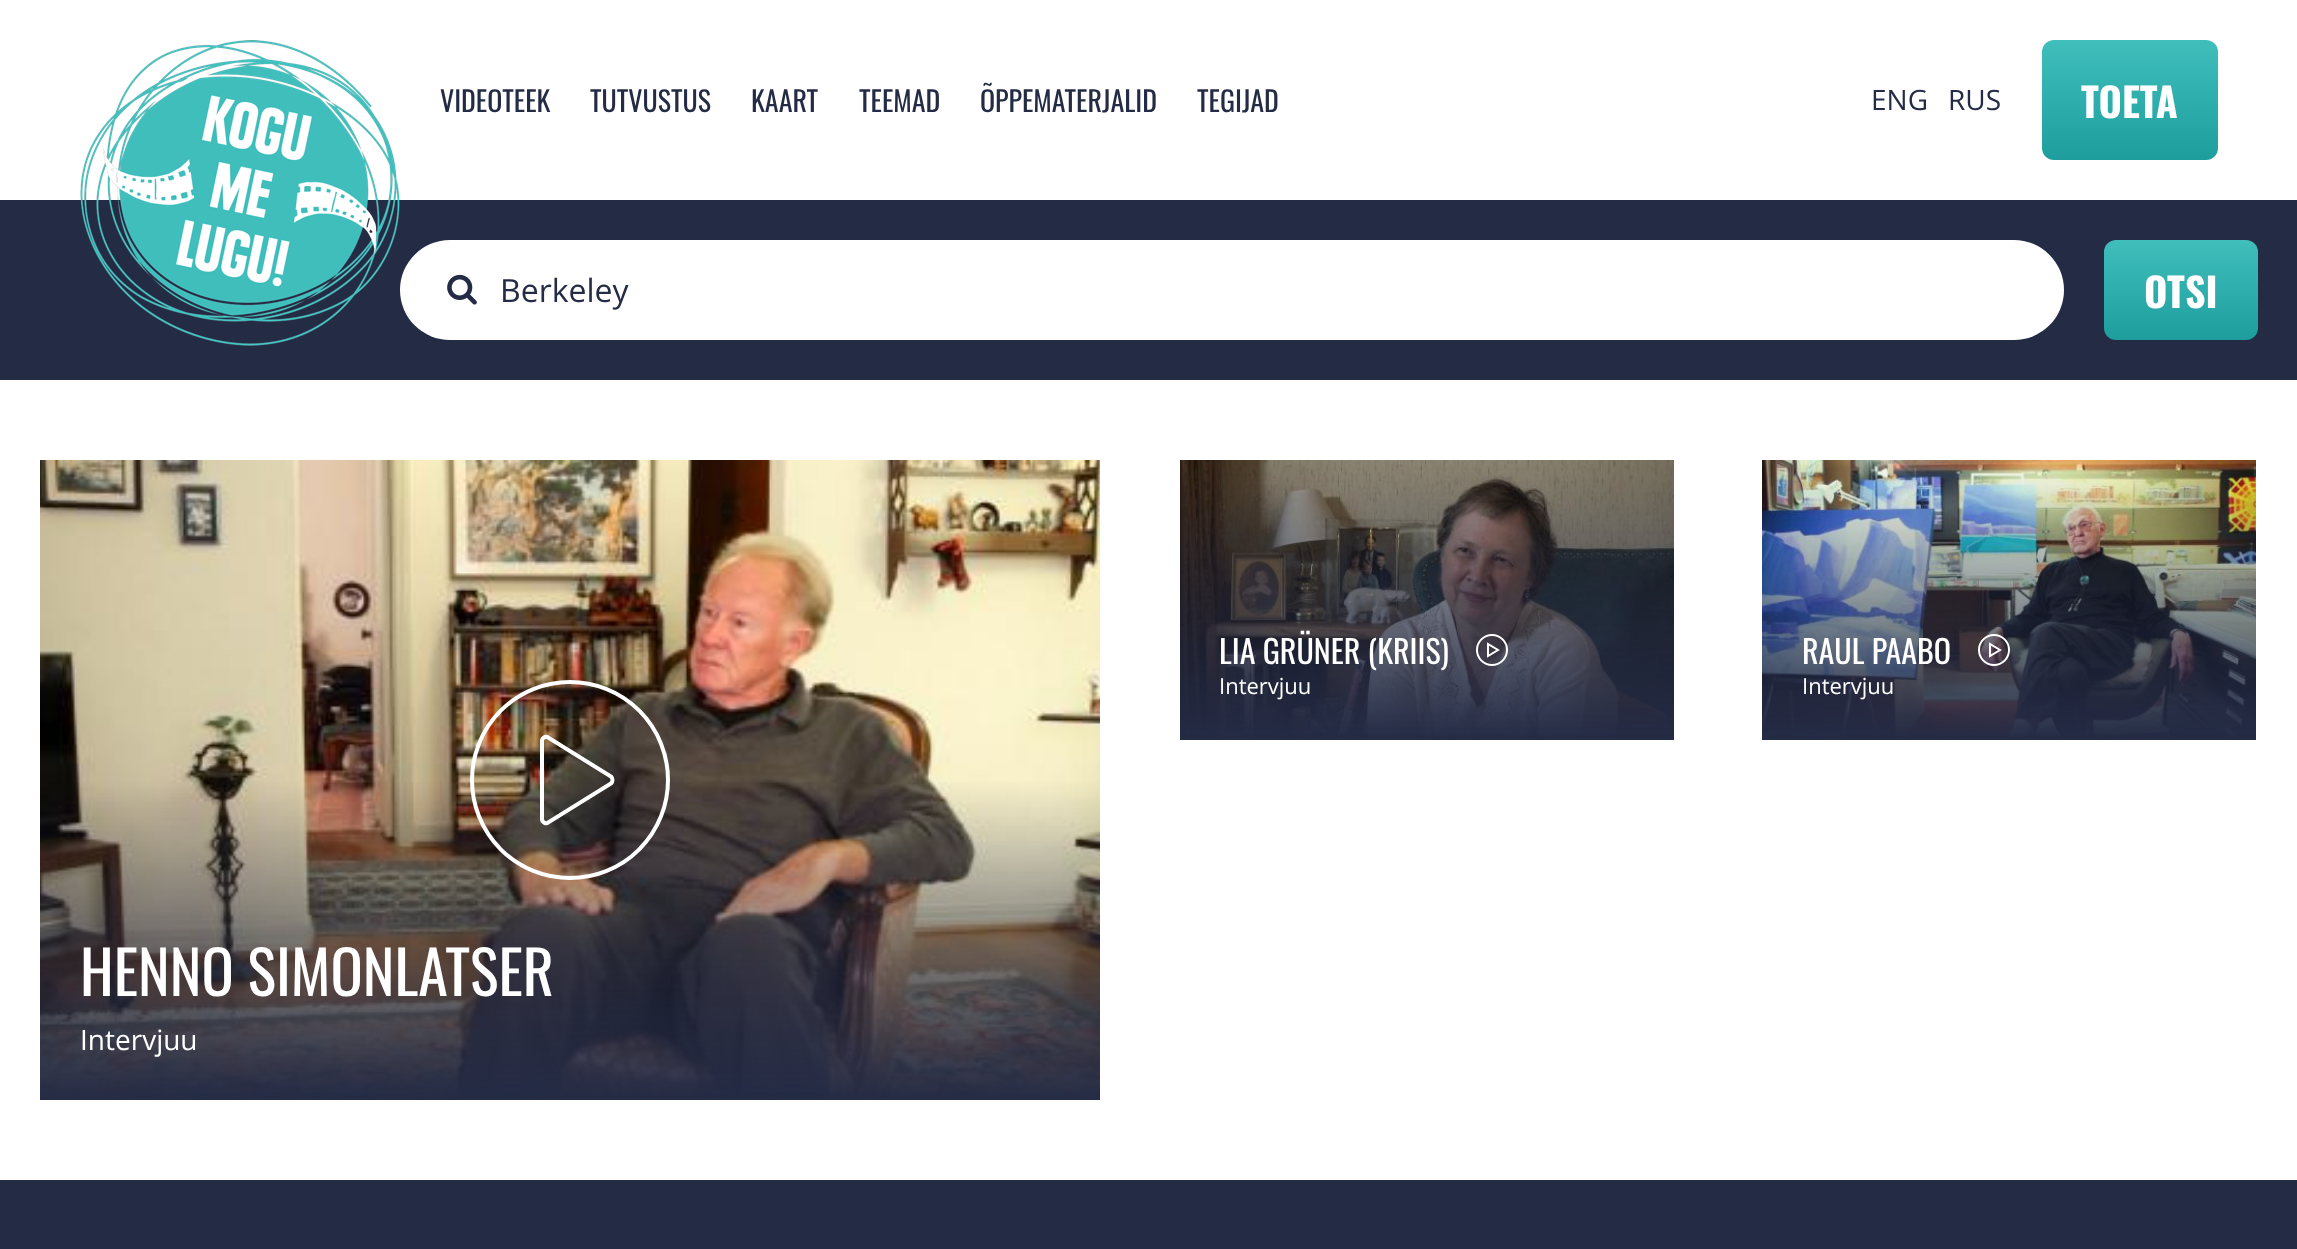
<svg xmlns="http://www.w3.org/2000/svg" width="2297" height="1249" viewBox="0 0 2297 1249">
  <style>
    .t1 { font: 28px Oswald; fill: #242b45; }
    .t2 { font: 28px Open Sans; fill: #242b45; }
    .t3 { font: bold 40px Oswald; fill: #fff; }
    .t4 { font: 32px Open Sans; fill: #242b45; }
    .t5 { font: 32px Oswald; fill: #fff; }
    .t6 { font: 22px Open Sans; fill: #fff; }
    .t7 { font: 60px Oswald; fill: #fff; }
    .t8 { font: 28px Open Sans; fill: #fff; }
  </style>
  <defs>
    <linearGradient id="g1" gradientUnits="userSpaceOnUse" x1="2130" y1="40" x2="2130" y2="160"><stop offset="0" stop-color="#3fbebc"/><stop offset="1" stop-color="#1d9e9c"/></linearGradient>
    <linearGradient id="g2" gradientUnits="userSpaceOnUse" x1="2181" y1="240" x2="2181" y2="340"><stop offset="0" stop-color="#3fbebc"/><stop offset="1" stop-color="#1d9e9c"/></linearGradient>
  </defs>
  <rect width="100%" height="100%" fill="#fff"/>
  <rect x="0" y="200" width="2297" height="180" fill="#242b45"/>
  <image x="80" y="40" width="320" height="306" href="images/1.png"/>
  <text x="440" y="112" class="t1">VIDEOTEEK</text>
  <text x="590" y="112" class="t1">TUTVUSTUS</text>
  <text x="751" y="112" class="t1">KAART</text>
  <text x="859" y="112" class="t1">TEEMAD</text>
  <text x="980" y="112" class="t1">ÕPPEMATERJALID</text>
  <text x="1197" y="112" class="t1">TEGIJAD</text>
  <text x="1871" y="110" class="t2">ENG</text>
  <text x="1948" y="110" class="t2">RUS</text>
  <rect x="2042" y="40" width="176" height="120" rx="12" fill="url(#g1)"/>
  <text x="2081" y="118" class="t3">TOETA</text>
  <rect x="400" y="240" width="1664" height="100" rx="50" fill="#fff"/>
  <image x="447" y="274" width="30" height="31" href="images/2.png"/>
  <text x="500" y="302" class="t4">Berkeley</text>
  <rect x="2104" y="240" width="154" height="100" rx="12" fill="url(#g2)"/>
  <text x="2144" y="308" class="t3">OTSI</text>
  <image x="1180" y="460" width="494" height="280" href="images/3.png"/>
  <text x="1219" y="664" class="t5">LIA GRÜNER (KRIIS)</text>
  <circle cx="1492" cy="650" r="15" fill="none" stroke="#fff" stroke-width="2"/>
  <path d="M1488 644V656L1498 650Z" fill="none" stroke="#fff" stroke-width="2"/>
  <text x="1219" y="694" class="t6">Intervjuu</text>
  <image x="1762" y="460" width="494" height="280" href="images/4.png"/>
  <text x="1802" y="664" class="t5">RAUL PAABO</text>
  <circle cx="1994" cy="650" r="15" fill="none" stroke="#fff" stroke-width="2"/>
  <path d="M1990 644V656L2000 650Z" fill="none" stroke="#fff" stroke-width="2"/>
  <text x="1802" y="694" class="t6">Intervjuu</text>
  <image x="40" y="460" width="1060" height="640" href="images/5.png"/>
  <circle cx="570" cy="780" r="98" fill="none" stroke="#fff" stroke-width="4"/>
  <path d="M548 737.5C547 736.5 545.5 736.5 544 737.5C543 738 542 739.5 542 741V819C542 820.5 543 822 544 822.5C545.5 823.5 547 823.5 548 822.5L611 783.5C612 782.5 612.5 781.5 612.5 780C612.5 778.5 612 777.5 611 776.5Z" fill="none" stroke="#fff" stroke-width="4"/>
  <text x="80" y="996" class="t7">HENNO SIMONLATSER</text>
  <text x="80" y="1050" class="t8">Intervjuu</text>
  <rect x="0" y="1180" width="2297" height="69" fill="#242b45"/>
</svg>
